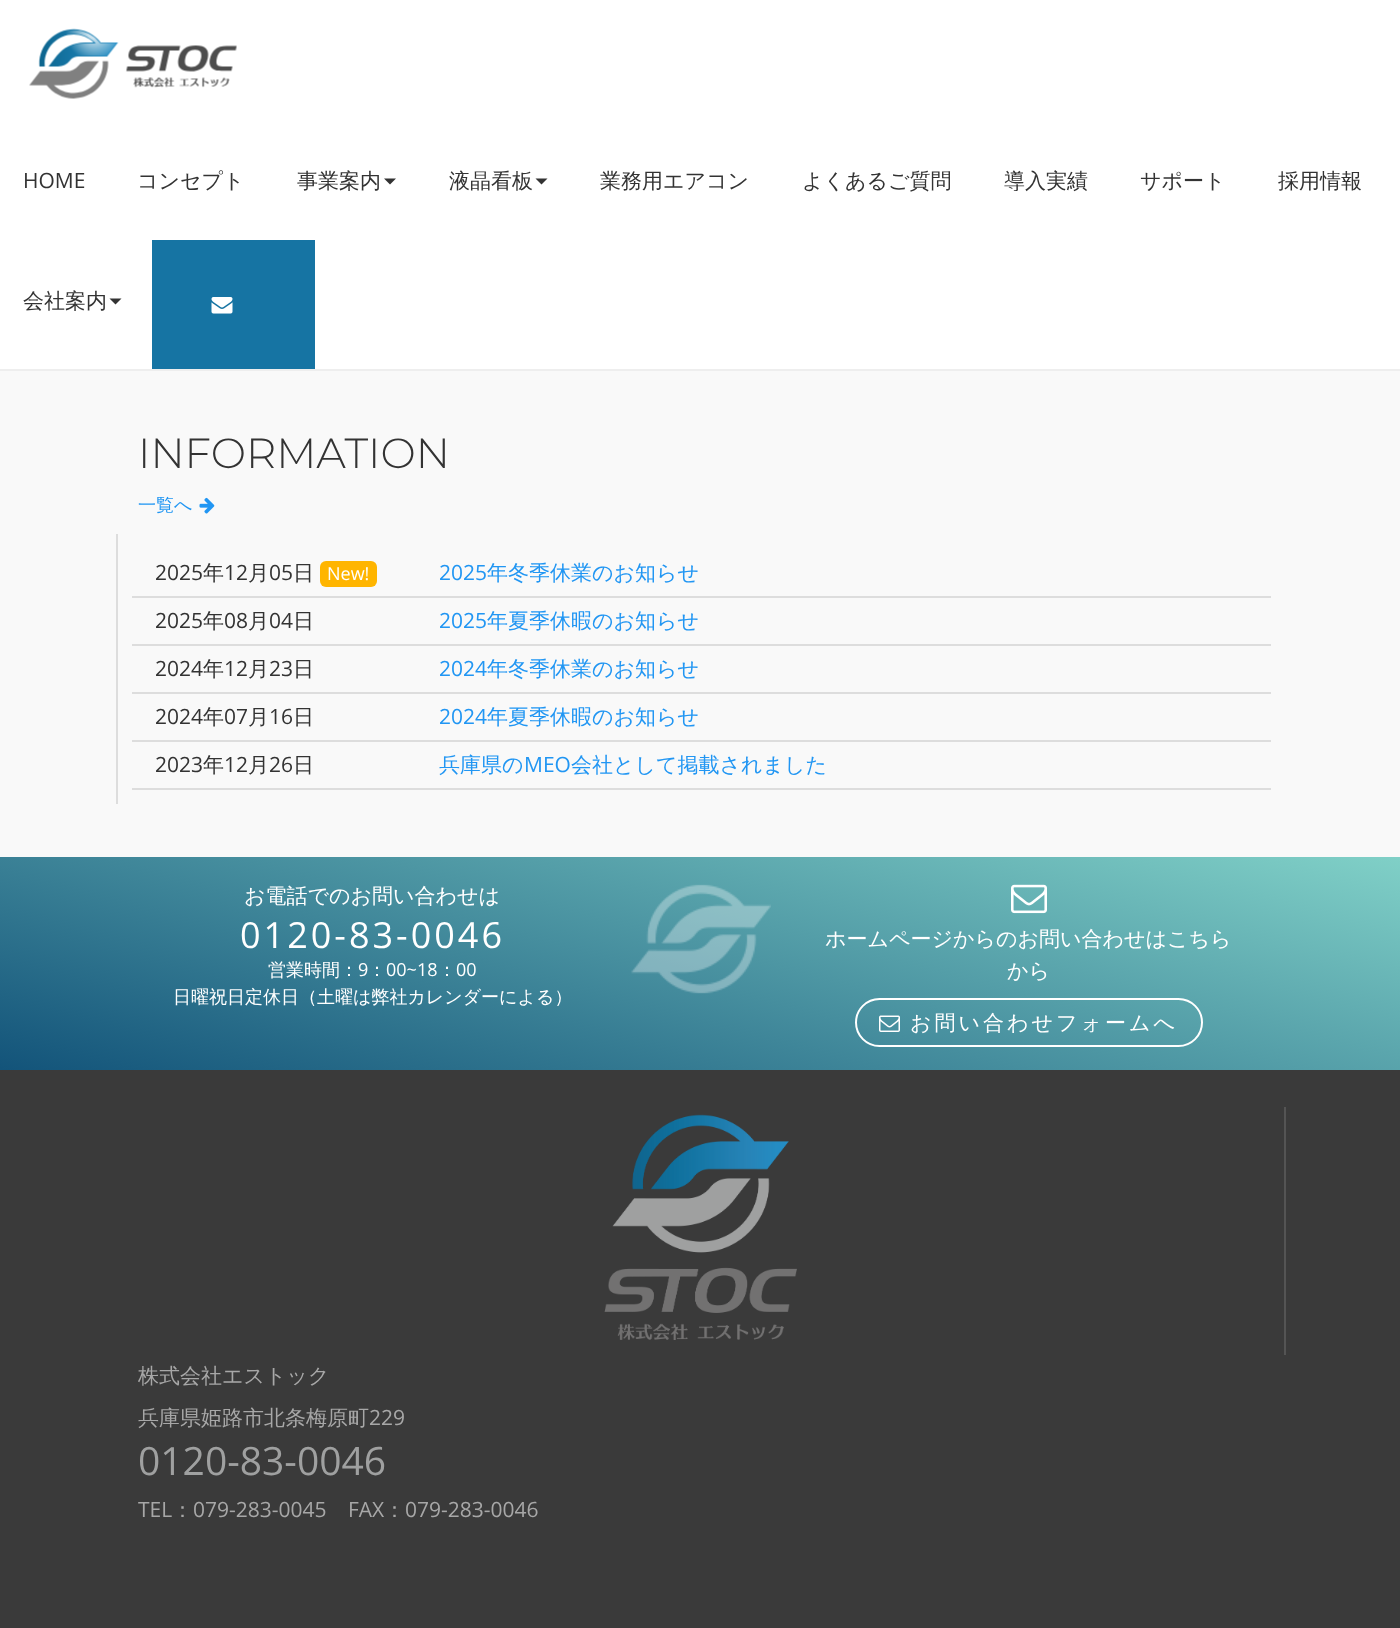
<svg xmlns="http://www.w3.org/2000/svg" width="1400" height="1628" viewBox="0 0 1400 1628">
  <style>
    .t1 { font: 21px Open Sans; fill: #333; }
    .t2 { font: 500 21px WenQuanYi Zen Hei; fill: #333; }
    .t3 { font: 300 42px Montserrat; fill: #333; }
    .t4 { font: 500 18px WenQuanYi Zen Hei; fill: #2196f3; }
    .t5 { font: 18px Open Sans; fill: #fff; }
    .t6 { font: 21px Open Sans; fill: #2196f3; }
    .t7 { font: 500 21px WenQuanYi Zen Hei; fill: #2196f3; }
    .t8 { font: 500 21px WenQuanYi Zen Hei; fill: #fff; }
    .t9 { font: 36px Open Sans; letter-spacing: 3px; fill: #fff; }
    .t10 { font: 500 18px WenQuanYi Zen Hei; fill: #fff; }
    .t11 { font: 500 21px WenQuanYi Zen Hei; letter-spacing: 3px; fill: #fff; }
    .t12 { font: 500 21px WenQuanYi Zen Hei; fill: #a7a7a7; }
    .t13 { font: 21px Open Sans; fill: #a7a7a7; }
    .t14 { font: 39px Open Sans; fill: #9fa0a0; }
  </style>
  <defs>
    <linearGradient id="g1" gradientUnits="userSpaceOnUse" x1="627" y1="1237" x2="774" y2="689"><stop offset="0" stop-color="#13547a"/><stop offset="1" stop-color="#80d0c7"/></linearGradient>
  </defs>
  <rect width="100%" height="100%" fill="#f9f9f9"/>
  <rect x="0" y="0" width="1400" height="369" fill="#fff"/>
  <rect x="0" y="369" width="1400" height="2" fill="#eee"/>
  <image x="29" y="28" width="208" height="71" href="images/1.png"/>
  <text x="23" y="188" class="t1">HOME</text>
  <text x="137" y="188" class="t2">コンセプト</text>
  <text x="297" y="188" class="t2">事業案内</text>
  <path d="M384 178.5H396L390 184.5Z" fill="#333"/>
  <text x="449" y="188" class="t2">液晶看板</text>
  <path d="M535.5 178.5H547.5L541.5 184.5Z" fill="#333"/>
  <text x="600" y="188" class="t2">業務用エアコン</text>
  <text x="802" y="188" class="t2">よくあるご質問</text>
  <text x="1004" y="188" class="t2">導入実績</text>
  <text x="1140" y="188" class="t2">サポート</text>
  <text x="1278" y="188" class="t2">採用情報</text>
  <text x="23" y="308" class="t2">会社案内</text>
  <path d="M109.5 298.5H121.5L115.5 304.5Z" fill="#333"/>
  <rect x="152" y="240" width="163" height="129" fill="#1674a3"/>
  <image x="211" y="297" width="22" height="17" href="images/2.png"/>
  <text x="138" y="468" class="t3">INFORMATION</text>
  <text x="138" y="511" class="t4">一覧へ</text>
  <image x="199" y="497" width="16" height="17" href="images/3.png"/>
  <rect x="116" y="534" width="2" height="270" fill="#ddd"/>
  <rect x="132" y="596" width="1139" height="2" fill="#ddd"/>
  <text x="155" y="580" class="t1">2025</text>
  <text x="203" y="580" class="t2">年</text>
  <text x="224" y="580" class="t1">12</text>
  <text x="248" y="580" class="t2">月</text>
  <text x="269" y="580" class="t1">05</text>
  <text x="293" y="580" class="t2">日</text>
  <rect x="320" y="561" width="57" height="26" rx="6" fill="#ffb500"/>
  <text x="327" y="580" class="t5">New!</text>
  <text x="439" y="580" class="t6">2025</text>
  <text x="487" y="580" class="t7">年冬季休業のお知らせ</text>
  <rect x="132" y="644" width="1139" height="2" fill="#ddd"/>
  <text x="155" y="628" class="t1">2025</text>
  <text x="203" y="628" class="t2">年</text>
  <text x="224" y="628" class="t1">08</text>
  <text x="248" y="628" class="t2">月</text>
  <text x="269" y="628" class="t1">04</text>
  <text x="293" y="628" class="t2">日</text>
  <text x="439" y="628" class="t6">2025</text>
  <text x="487" y="628" class="t7">年夏季休暇のお知らせ</text>
  <rect x="132" y="692" width="1139" height="2" fill="#ddd"/>
  <text x="155" y="676" class="t1">2024</text>
  <text x="203" y="676" class="t2">年</text>
  <text x="224" y="676" class="t1">12</text>
  <text x="248" y="676" class="t2">月</text>
  <text x="269" y="676" class="t1">23</text>
  <text x="293" y="676" class="t2">日</text>
  <text x="439" y="676" class="t6">2024</text>
  <text x="487" y="676" class="t7">年冬季休業のお知らせ</text>
  <rect x="132" y="740" width="1139" height="2" fill="#ddd"/>
  <text x="155" y="724" class="t1">2024</text>
  <text x="203" y="724" class="t2">年</text>
  <text x="224" y="724" class="t1">07</text>
  <text x="248" y="724" class="t2">月</text>
  <text x="269" y="724" class="t1">16</text>
  <text x="293" y="724" class="t2">日</text>
  <text x="439" y="724" class="t6">2024</text>
  <text x="487" y="724" class="t7">年夏季休暇のお知らせ</text>
  <rect x="132" y="788" width="1139" height="2" fill="#ddd"/>
  <text x="155" y="772" class="t1">2023</text>
  <text x="203" y="772" class="t2">年</text>
  <text x="224" y="772" class="t1">12</text>
  <text x="248" y="772" class="t2">月</text>
  <text x="269" y="772" class="t1">26</text>
  <text x="293" y="772" class="t2">日</text>
  <text x="439" y="772" class="t7">兵庫県の</text>
  <text x="524" y="772" class="t6">MEO</text>
  <text x="571" y="772" class="t7">会社として掲載されました</text>
  <rect x="0" y="857" width="1400" height="213" fill="url(#g1)"/>
  <text x="244" y="903" class="t8">お電話でのお問い合わせは</text>
  <text x="240" y="948" class="t9">0120-83-0046</text>
  <text x="268" y="976" class="t10">営業時間：</text>
  <text x="358" y="976" class="t5">9</text>
  <text x="368" y="976" class="t10">：</text>
  <text x="386" y="976" class="t5">00~18</text>
  <text x="438" y="976" class="t10">：</text>
  <text x="456" y="976" class="t5">00</text>
  <text x="173" y="1003" class="t10">日曜祝日定休日（土曜は弊社カレンダーによる）</text>
  <image x="631" y="884" width="140" height="110" href="images/4.png"/>
  <image x="1011" y="884" width="36" height="30" href="images/5.png"/>
  <text x="825" y="946" class="t8">ホームページからのお問い合わせはこちら</text>
  <text x="1007" y="978" class="t8">から</text>
  <rect x="856" y="999" width="346" height="47" rx="23.5" fill="none" stroke="#fff" stroke-width="2"/>
  <image x="879" y="1015" width="21" height="17" href="images/6.png"/>
  <text x="910" y="1030" class="t11">お問い合わせフォームへ</text>
  <rect x="0" y="1070" width="1400" height="558" fill="#3a3a3a"/>
  <rect x="1284" y="1107" width="2" height="248" fill="#545454"/>
  <image x="604" y="1114" width="193" height="226" href="images/7.png"/>
  <text x="138" y="1383" class="t12">株式会社エストック</text>
  <text x="138" y="1425" class="t12">兵庫県姫路市北条梅原町</text>
  <text x="369" y="1425" class="t13">229</text>
  <text x="138" y="1475" class="t14">0120-83-0046</text>
  <text x="138" y="1517" class="t13">TEL</text>
  <text x="172" y="1517" class="t12">：</text>
  <text x="193" y="1517" class="t13">079-283-0045</text>
  <text x="348" y="1517" class="t13">FAX</text>
  <text x="384" y="1517" class="t12">：</text>
  <text x="405" y="1517" class="t13">079-283-0046</text>
</svg>
